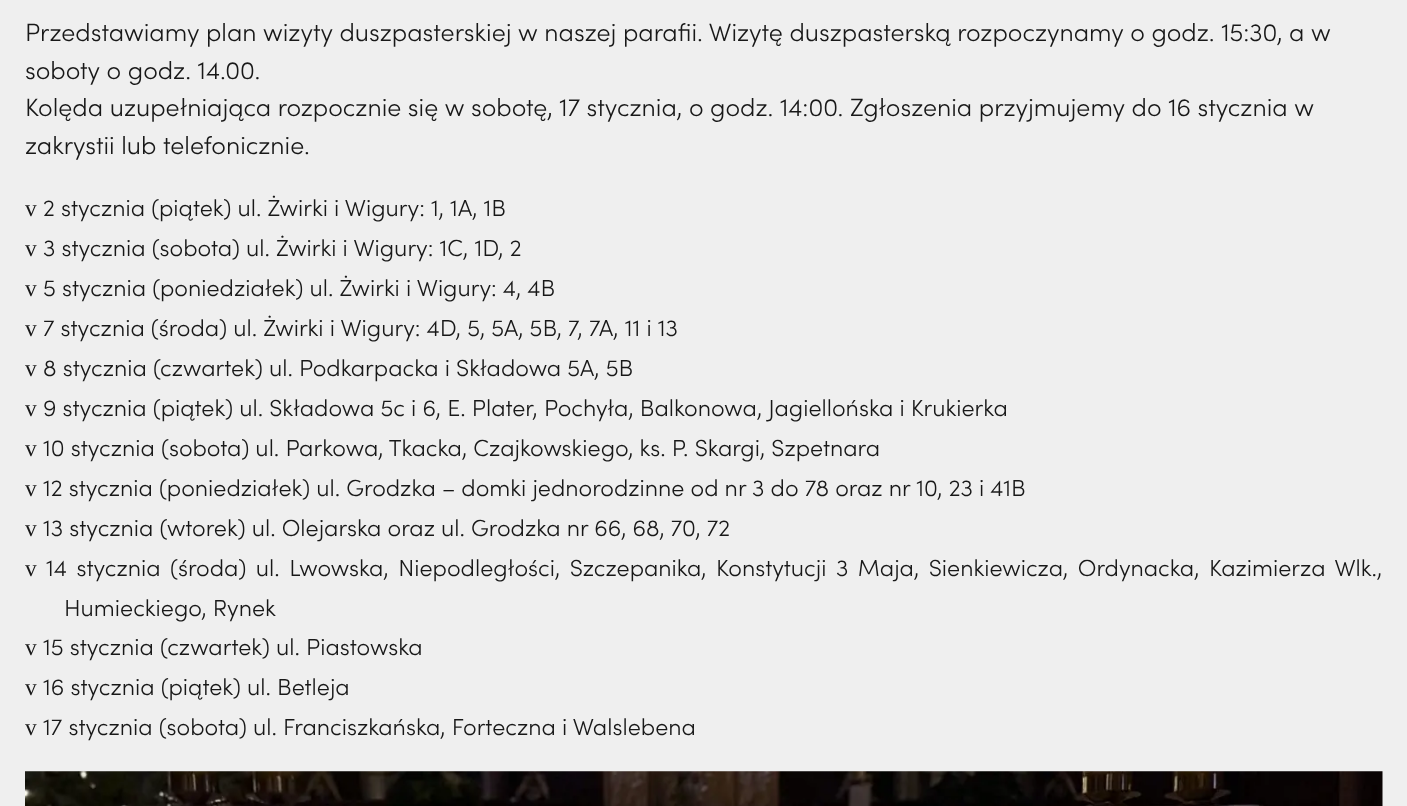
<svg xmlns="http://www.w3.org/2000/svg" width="1407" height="806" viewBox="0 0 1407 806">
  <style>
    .t1 { font: 300 25px Sofia; fill: #181818; }
    .t2 { font: 23.33px Liberation Serif; fill: #181818; }
    .t3 { font: 300 23.33px Sofia; fill: #181818; }
  </style>
  <rect width="100%" height="100%" fill="#efefef"/>
  <text x="25" y="41" class="t1">Przedstawiamy plan wizyty duszpasterskiej w naszej parafii. Wizytę duszpasterską rozpoczynamy o godz. 15:30, a w</text>
  <text x="25" y="79" class="t1">soboty o godz. 14.00.</text>
  <text x="25" y="116" class="t1">Kolęda uzupełniająca rozpocznie się w sobotę, 17 stycznia, o godz. 14:00. Zgłoszenia przyjmujemy do 16 stycznia w</text>
  <text x="25" y="154" class="t1">zakrystii lub telefonicznie.</text>
  <text x="25" y="216" class="t2">v</text>
  <text x="43" y="216" class="t3">2 stycznia (piątek) ul. Żwirki i Wigury: 1, 1A, 1B</text>
  <text x="25" y="256" class="t2">v</text>
  <text x="43" y="256" class="t3">3 stycznia (sobota) ul. Żwirki i Wigury: 1C, 1D, 2</text>
  <text x="25" y="296" class="t2">v</text>
  <text x="43" y="296" class="t3">5 stycznia (poniedziałek) ul. Żwirki i Wigury: 4, 4B</text>
  <text x="25" y="336" class="t2">v</text>
  <text x="43" y="336" class="t3">7 stycznia (środa) ul. Żwirki i Wigury: 4D, 5, 5A, 5B, 7, 7A, 11 i 13</text>
  <text x="25" y="376" class="t2">v</text>
  <text x="43" y="376" class="t3">8 stycznia (czwartek) ul. Podkarpacka i Składowa 5A, 5B</text>
  <text x="25" y="416" class="t2">v</text>
  <text x="43" y="416" class="t3">9 stycznia (piątek) ul. Składowa 5c i 6, E. Plater, Pochyła, Balkonowa, Jagiellońska i Krukierka</text>
  <text x="25" y="456" class="t2">v</text>
  <text x="43" y="456" class="t3">10 stycznia (sobota) ul. Parkowa, Tkacka, Czajkowskiego, ks. P. Skargi, Szpetnara</text>
  <text x="25" y="496" class="t2">v</text>
  <text x="43" y="496" class="t3">12 stycznia (poniedziałek) ul. Grodzka – domki jednorodzinne od nr 3 do 78 oraz nr 10, 23 i 41B</text>
  <text x="25" y="536" class="t2">v</text>
  <text x="43" y="536" class="t3">13 stycznia (wtorek) ul. Olejarska oraz ul. Grodzka nr 66, 68, 70, 72</text>
  <text x="25" y="576" class="t2">v</text>
  <text x="46" y="576" word-spacing="3.4" class="t3">14 stycznia (środa) ul. Lwowska, Niepodległości, Szczepanika, Konstytucji 3 Maja, Sienkiewicza, Ordynacka, Kazimierza Wlk.,</text>
  <text x="64" y="616" class="t3">Humieckiego, Rynek</text>
  <text x="25" y="655" class="t2">v</text>
  <text x="43" y="655" class="t3">15 stycznia (czwartek) ul. Piastowska</text>
  <text x="25" y="695" class="t2">v</text>
  <text x="43" y="695" class="t3">16 stycznia (piątek) ul. Betleja</text>
  <text x="25" y="735" class="t2">v</text>
  <text x="43" y="735" class="t3">17 stycznia (sobota) ul. Franciszkańska, Forteczna i Walslebena</text>
  <image x="25" y="771" width="1358" height="35" href="images/1.png"/>
</svg>
